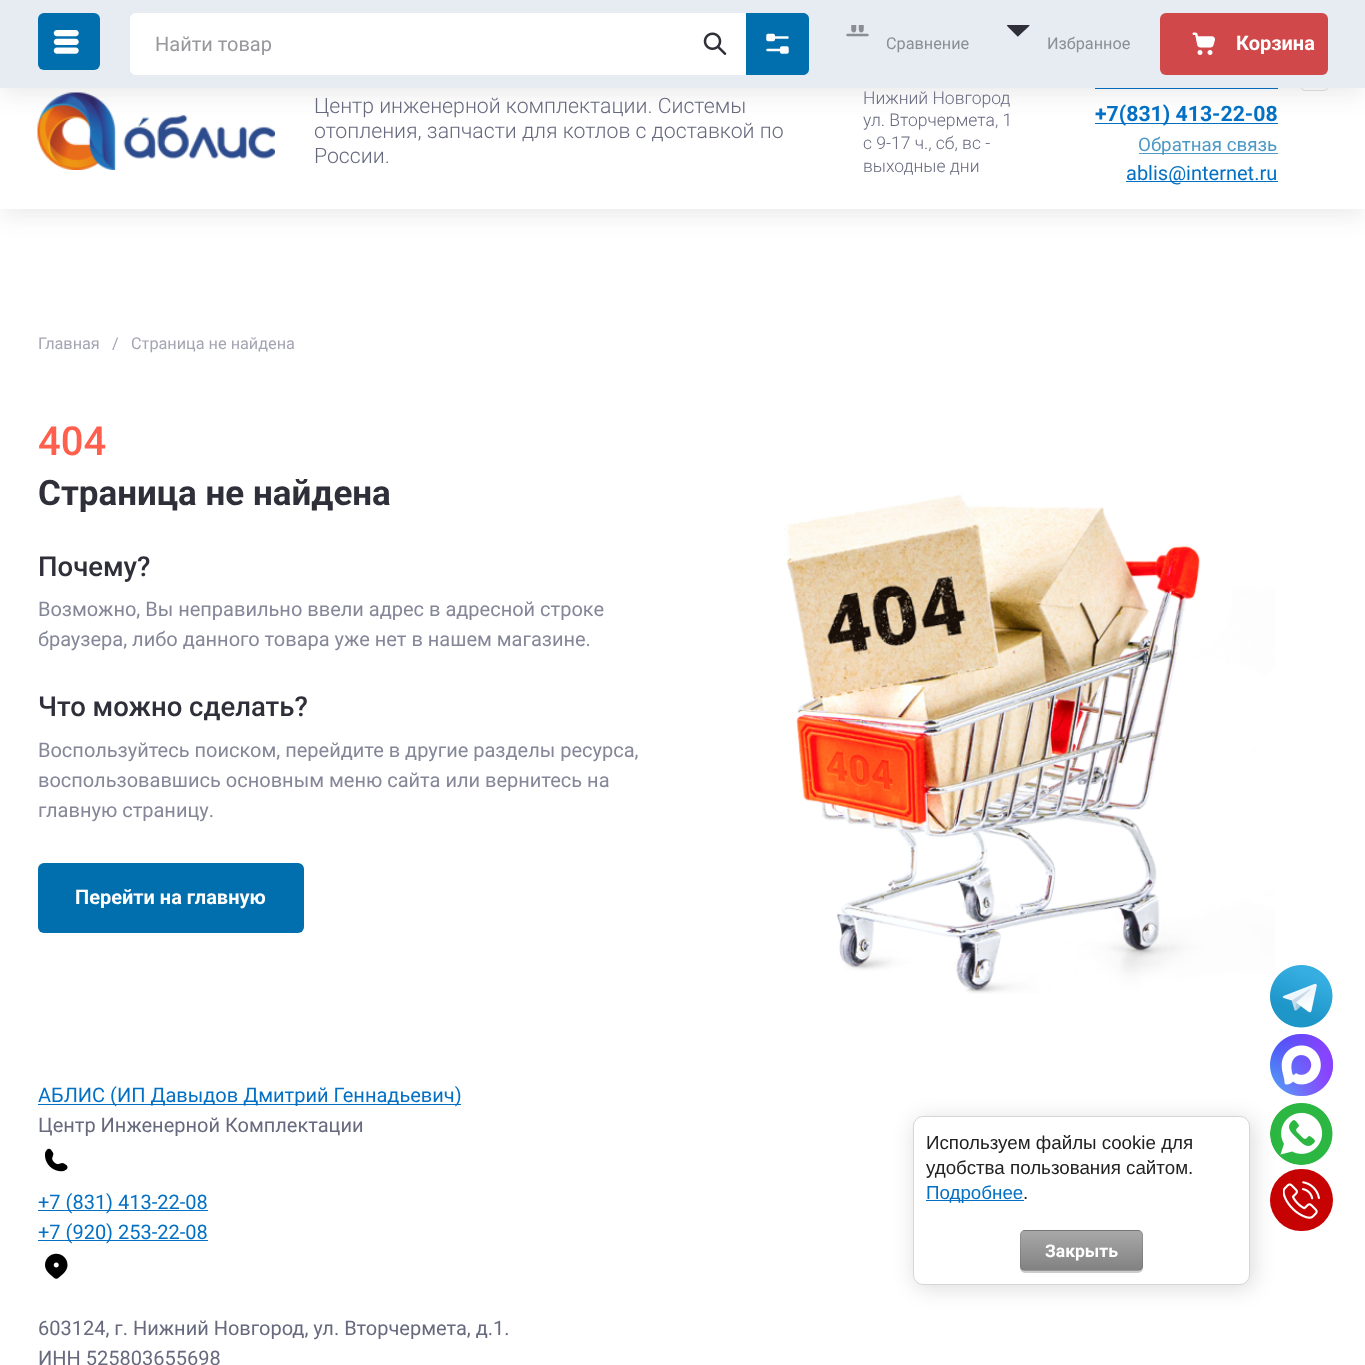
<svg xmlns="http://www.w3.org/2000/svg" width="1365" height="1365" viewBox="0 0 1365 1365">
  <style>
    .t1 { font: 20px Roboto; fill: #97979c; }
    .t2 { font: 16.25px Roboto; fill: #8a8e95; }
    .t3 { font: bold 20px Roboto; fill: #fff; }
    .t4 { font: 300 21.25px Roboto; fill: #67697e; }
    .t5 { font: 300 17.5px Roboto; fill: #67697e; }
    .t6 { font: bold 21.25px Roboto; fill: #0470c4; }
    .t7 { font: 18.75px Roboto; fill: #4d99c6; }
    .t8 { font: 20px Roboto; fill: #0470c4; }
    .t9 { font: 16.25px Roboto; fill: #a4a5b2; }
    .t10 { font: 500 40px Roboto; fill: #ff604e; }
    .t11 { font: bold 35px Roboto; fill: #2e2f38; }
    .t12 { font: 500 27.5px Roboto; fill: #2e2f38; }
    .t13 { font: 20px Roboto; fill: #858798; }
    .t14 { font: 20px Roboto; fill: #67697e; }
    .t15 { font: 18.75px Liberation Sans; fill: #212121; }
    .t16 { font: 18.75px Liberation Sans; fill: #0470c4; }
    .t17 { font: bold 17.5px Roboto; fill: #fff; }
  </style>
  <defs>
    <clipPath id="clip1"><rect x="999" y="25" width="37" height="38"/></clipPath>
    <clipPath id="clip2"><rect x="1020" y="1230" width="123" height="41" rx="5"/></clipPath>
    <linearGradient id="g1" gradientUnits="userSpaceOnUse" x1="1081" y1="1193" x2="1081" y2="1231"><stop offset="0" stop-color="#a8a8a8"/><stop offset="1" stop-color="#828282"/></linearGradient>
    <linearGradient id="g2" gradientUnits="userSpaceOnUse" x1="1081" y1="1231" x2="1081" y2="1270"><stop offset="0" stop-color="#a8a8a8"/><stop offset="1" stop-color="#828282"/></linearGradient>
    <linearGradient id="g3" gradientUnits="userSpaceOnUse" x1="1081" y1="1270" x2="1081" y2="1309"><stop offset="0" stop-color="#a8a8a8"/><stop offset="1" stop-color="#828282"/></linearGradient>
  </defs>
  <rect width="100%" height="100%" fill="#fff"/>
  <rect x="0" y="61" width="1365" height="154" fill="#2e2f381a" filter="blur(12.5px)"/>
  <rect x="0" y="88" width="1365" height="121" fill="#fff"/>
  <image x="37" y="92" width="238" height="78" href="images/6.png"/>
  <rect x="1301.5" y="65.5" width="26" height="25" rx="3.5" fill="none" stroke="#e0e0e0"/>
  <rect x="1095" y="88" width="183" height="1" fill="#0470c4"/>
  <rect x="1095" y="123" width="183" height="1" fill="#0470c4"/>
  <rect x="0" y="6" width="1365" height="88" fill="#2e2f381a" filter="blur(12.5px)"/>
  <rect x="0" y="0" width="1365" height="88" fill="#e6ecf1"/>
  <rect x="38" y="13" width="62" height="57" rx="6" fill="#016ead"/>
  <image x="53" y="30" width="26" height="24" href="images/1.png"/>
  <path d="M136 13H746V75H136C132.5 75 130 72.5 130 69V19C130 15.5 132.5 13 136 13Z" fill="#fff"/>
  <text x="155" y="51" class="t1">Найти товар</text>
  <image x="703" y="32" width="24" height="23" href="images/2.png"/>
  <path d="M746 13H803C806.5 13 809 15.5 809 19V69C809 72.5 806.5 75 803 75H746Z" fill="#016ead"/>
  <image x="766" y="33" width="23" height="21" href="images/3.png"/>
  <image x="846" y="25" width="23" height="12" href="images/4.png"/>
  <text x="886" y="49" class="t2">Сравнение</text>
  <g clip-path="url(#clip1)">
    <path d="M1012.5 22.5L1018 28L1024 22.5" fill="none" stroke="#2e2f38" stroke-width="12.5" stroke-linecap="round"/>
  </g>
  <text x="1047" y="49" class="t2">Избранное</text>
  <rect x="1160" y="13" width="168" height="62" rx="6" fill="#d0484a"/>
  <image x="1192" y="32" width="23" height="23" href="images/5.png"/>
  <text x="1236" y="50" class="t3">Корзина</text>
  <text x="314" y="113" class="t4">Центр инженерной комплектации. Системы</text>
  <text x="314" y="138" class="t4">отопления, запчасти для котлов с доставкой по</text>
  <text x="314" y="163" class="t4">России.</text>
  <text x="863" y="104" class="t5">Нижний Новгород</text>
  <text x="863" y="126" class="t5">ул. Вторчермета, 1</text>
  <text x="863" y="149" class="t5">с 9-17 ч., сб, вс -</text>
  <text x="863" y="172" class="t5">выходные дни</text>
  <text x="1095" y="121" class="t6">+7(831) 413-22-08</text>
  <rect x="1139" y="153" width="139" height="1" fill="#4d9ac6"/>
  <text x="1138" y="151" class="t7">Обратная связь</text>
  <rect x="1126" y="181" width="152" height="1" fill="#0470c4"/>
  <text x="1126" y="180" class="t8">ablis@internet.ru</text>
  <text x="38" y="349" class="t9">Главная</text>
  <text x="112" y="349" class="t9">/</text>
  <text x="131" y="349" class="t9">Страница не найдена</text>
  <text x="38" y="455" class="t10">404</text>
  <text x="38" y="505" class="t11">Страница не найдена</text>
  <text x="38" y="576" class="t12">Почему?</text>
  <text x="38" y="616" class="t13">Возможно, Вы неправильно ввели адрес в адресной строке</text>
  <text x="38" y="646" class="t13">браузера, либо данного товара уже нет в нашем магазине.</text>
  <text x="38" y="716" class="t12">Что можно сделать?</text>
  <text x="38" y="757" class="t13">Воспользуйтесь поиском, перейдите в другие разделы ресурса,</text>
  <text x="38" y="787" class="t13">воспользовавшись основным меню сайта или вернитесь на</text>
  <text x="38" y="817" class="t13">главную страницу.</text>
  <rect x="38" y="863" width="266" height="70" rx="6" fill="#016ead"/>
  <text x="75" y="904" class="t3">Перейти на главную</text>
  <image x="784" y="494" width="491" height="500" href="images/7.png"/>
  <rect x="38" y="1104" width="423" height="1" fill="#0470c4"/>
  <text x="38" y="1102" class="t8">АБЛИС (ИП Давыдов Дмитрий Геннадьевич)</text>
  <text x="38" y="1132" class="t14">Центр Инженерной Комплектации</text>
  <image x="45" y="1148" width="23" height="24" href="images/8.png"/>
  <rect x="38" y="1210" width="170" height="1" fill="#0470c4"/>
  <text x="38" y="1209" class="t8">+7 (831) 413-22-08</text>
  <rect x="38" y="1240" width="170" height="1" fill="#0470c4"/>
  <text x="38" y="1239" class="t8">+7 (920) 253-22-08</text>
  <image x="45" y="1253" width="23" height="26" href="images/9.png"/>
  <text x="38" y="1335" class="t14">603124, г. Нижний Новгород, ул. Вторчермета, д.1.</text>
  <text x="38" y="1365" class="t14">ИНН 525803655698</text>
  <image x="1270" y="1034" width="63" height="62" href="images/11.png"/>
  <image x="1270" y="1103" width="63" height="62" href="images/12.png"/>
  <rect x="1270" y="1169" width="63" height="62" rx="31" fill="#c70202"/>
  <image x="1283" y="1181" width="37" height="38" href="images/13.png"/>
  <rect x="915" y="1119" width="338" height="169" rx="10" fill="#00000024" filter="blur(11px)"/>
  <rect x="913.5" y="1116.5" width="336" height="168" rx="9.5" fill="#fff" stroke="#d6d6d6"/>
  <text x="926" y="1149" class="t15">Используем файлы cookie для</text>
  <text x="926" y="1174" class="t15">удобства пользования сайтом.</text>
  <rect x="926" y="1200" width="98" height="1" fill="#0470c4"/>
  <text x="926" y="1199" class="t16">Подробнее</text>
  <text x="1023" y="1199" class="t15">.</text>
  <rect x="1020" y="1231" width="123" height="42" rx="5" fill="#00000033" filter="blur(0.5px)"/>
  <g clip-path="url(#clip2)">
    <rect x="1020" y="1230" width="123" height="1" fill="url(#g1)"/>
    <rect x="1020" y="1231" width="123" height="39" fill="url(#g2)"/>
    <rect x="1020" y="1270" width="123" height="1" fill="url(#g3)"/>
  </g>
  <rect x="1020.5" y="1230.5" width="122" height="40" rx="4.5" fill="none" stroke="#0000001a"/>
  <text x="1045" y="1257" class="t17">Закрыть</text>
  <image x="1270" y="965" width="63" height="63" href="images/10.png"/>
</svg>
